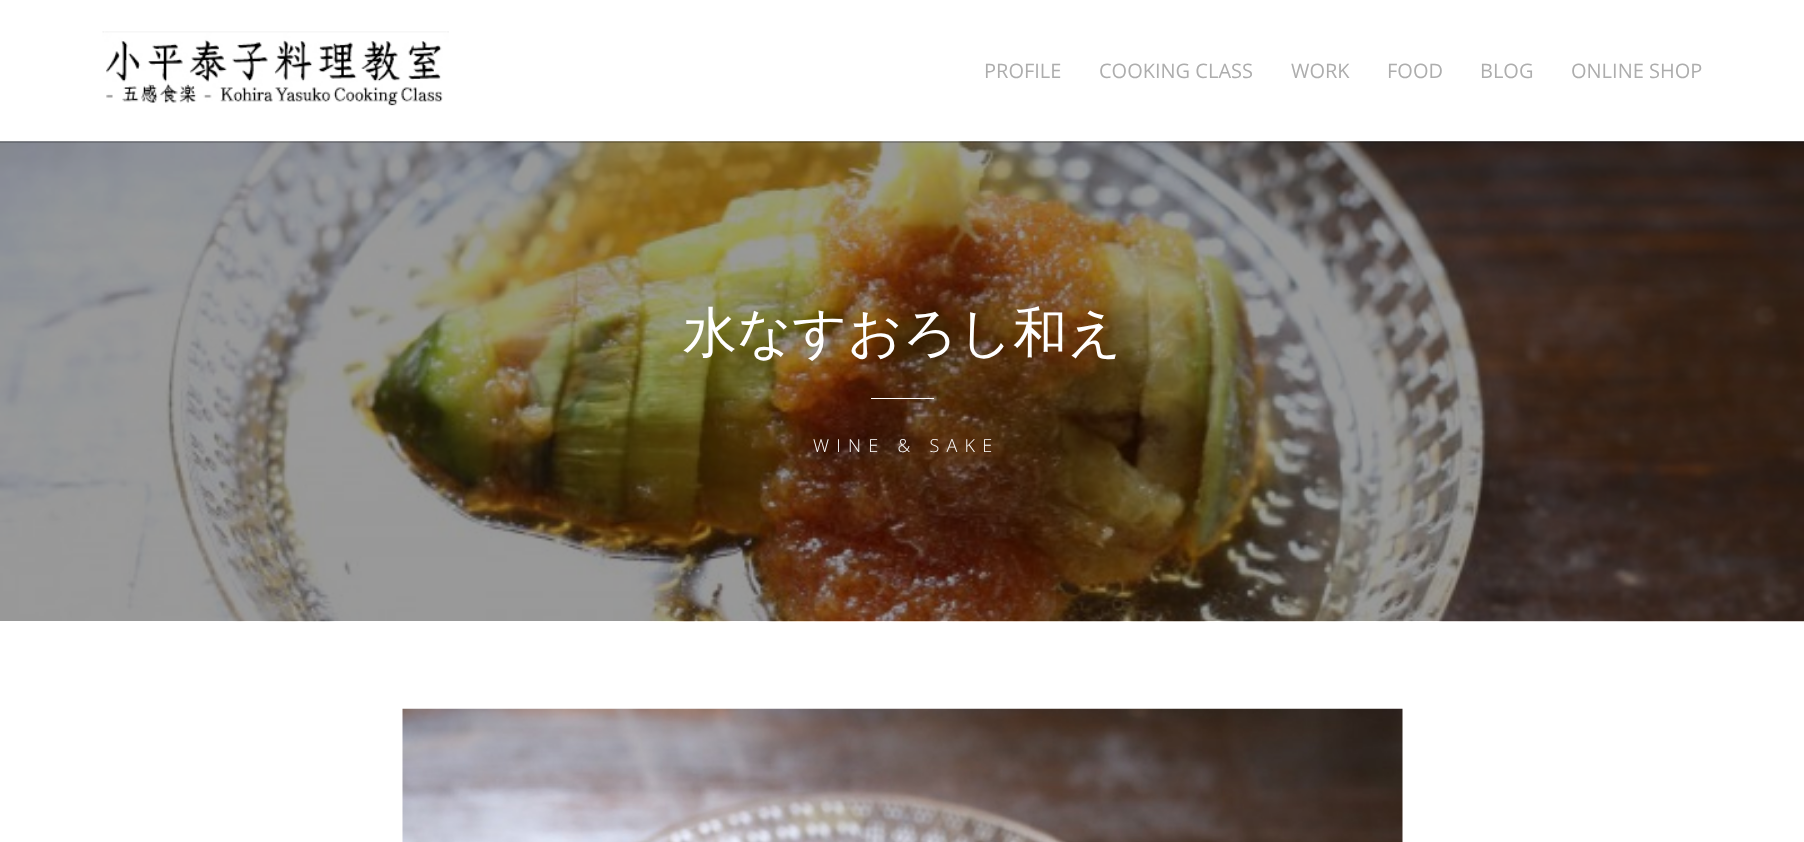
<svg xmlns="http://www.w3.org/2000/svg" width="1804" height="842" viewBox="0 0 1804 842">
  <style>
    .t1 { font: 20px Open Sans; fill: #adadad; }
    .t2 { font: 500 54px WenQuanYi Zen Hei; fill: #fff; }
    .t3 { font: 300 18px Open Sans; letter-spacing: 7.25px; fill: #fff; }
  </style>
  <defs>
    <clipPath id="clip1"><rect x="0" y="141" width="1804" height="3"/></clipPath>
  </defs>
  <rect width="100%" height="100%" fill="#fff"/>
  <image x="0" y="141" width="1804" height="481" href="images/2.png"/>
  <g clip-path="url(#clip1)">
    <rect x="0" y="1" width="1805" height="142" fill="#00000033" filter="blur(0.5px)"/>
  </g>
  <image x="102" y="31" width="347" height="75" href="images/1.png"/>
  <text x="984" y="78" class="t1">PROFILE</text>
  <text x="1099" y="78" class="t1">COOKING CLASS</text>
  <text x="1291" y="78" class="t1">WORK</text>
  <text x="1387" y="78" class="t1">FOOD</text>
  <text x="1480" y="78" class="t1">BLOG</text>
  <text x="1571" y="78" class="t1">ONLINE SHOP</text>
  <text x="683" y="351" class="t2">水なすおろし和え</text>
  <rect x="871" y="398" width="63" height="1" fill="#fff"/>
  <text x="813" y="452" class="t3">WINE &amp; SAKE</text>
  <image x="402" y="708" width="1001" height="134" href="images/3.png"/>
</svg>
